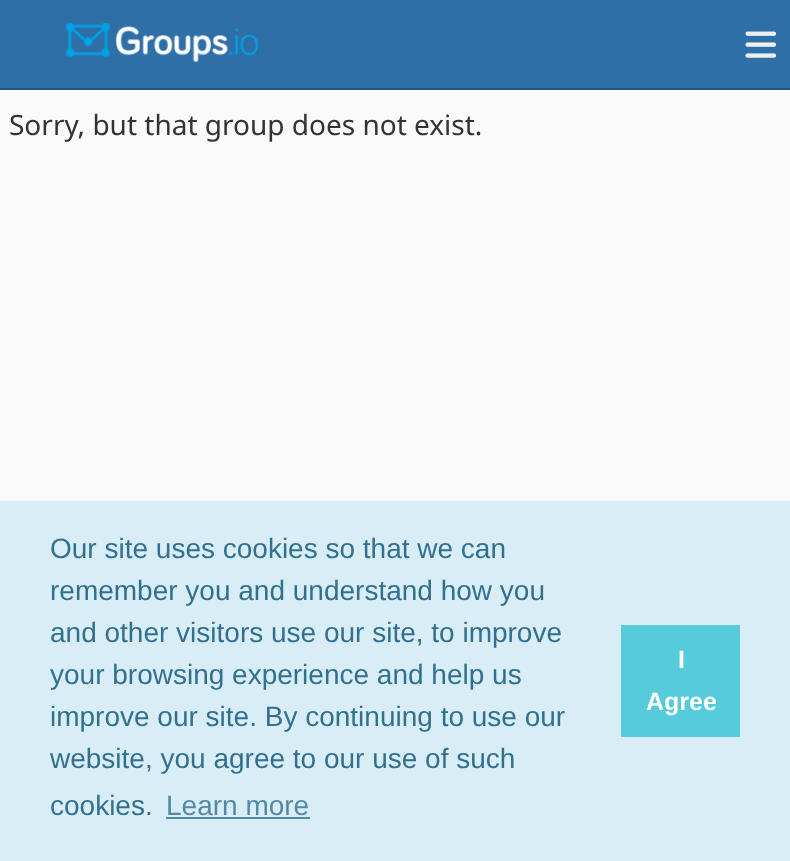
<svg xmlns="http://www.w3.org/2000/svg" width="790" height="861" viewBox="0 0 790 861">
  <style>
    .t1 { font: 28px Noto Sans; fill: #333; }
    .t2 { font: 28px Liberation Sans; fill: #31708f; }
    .t3 { font: 28px Liberation Sans; fill: #5389a4; }
    .t4 { font: bold 25px Liberation Sans; fill: #fff; }
  </style>
  <rect width="100%" height="100%" fill="#fafafa"/>
  <rect x="0" y="0" width="790" height="88" fill="#2f6fa7"/>
  <rect x="0" y="88" width="790" height="2" fill="#245580"/>
  <image x="65" y="22" width="194" height="41" href="images/1.png"/>
  <image x="745" y="31" width="32" height="27" href="images/2.png"/>
  <text x="9" y="135" class="t1">Sorry, but that group does not exist.</text>
  <rect x="0" y="501" width="790" height="360" fill="#d9edf7"/>
  <text x="50" y="558" class="t2">Our site uses cookies so that we can</text>
  <text x="50" y="600" class="t2">remember you and understand how you</text>
  <text x="50" y="642" class="t2">and other visitors use our site, to improve</text>
  <text x="50" y="684" class="t2">your browsing experience and help us</text>
  <text x="50" y="726" class="t2">improve our site. By continuing to use our</text>
  <text x="50" y="768" class="t2">website, you agree to our use of such</text>
  <text x="50" y="815" class="t2">cookies.</text>
  <text x="166" y="815" class="t3">Learn more</text>
  <rect x="166" y="817" width="144" height="2" fill="#5389a4"/>
  <rect x="621" y="625" width="119" height="112" fill="#56cbdb"/>
  <text x="678" y="668" class="t4">I</text>
  <text x="646" y="710" class="t4">Agree</text>
</svg>
